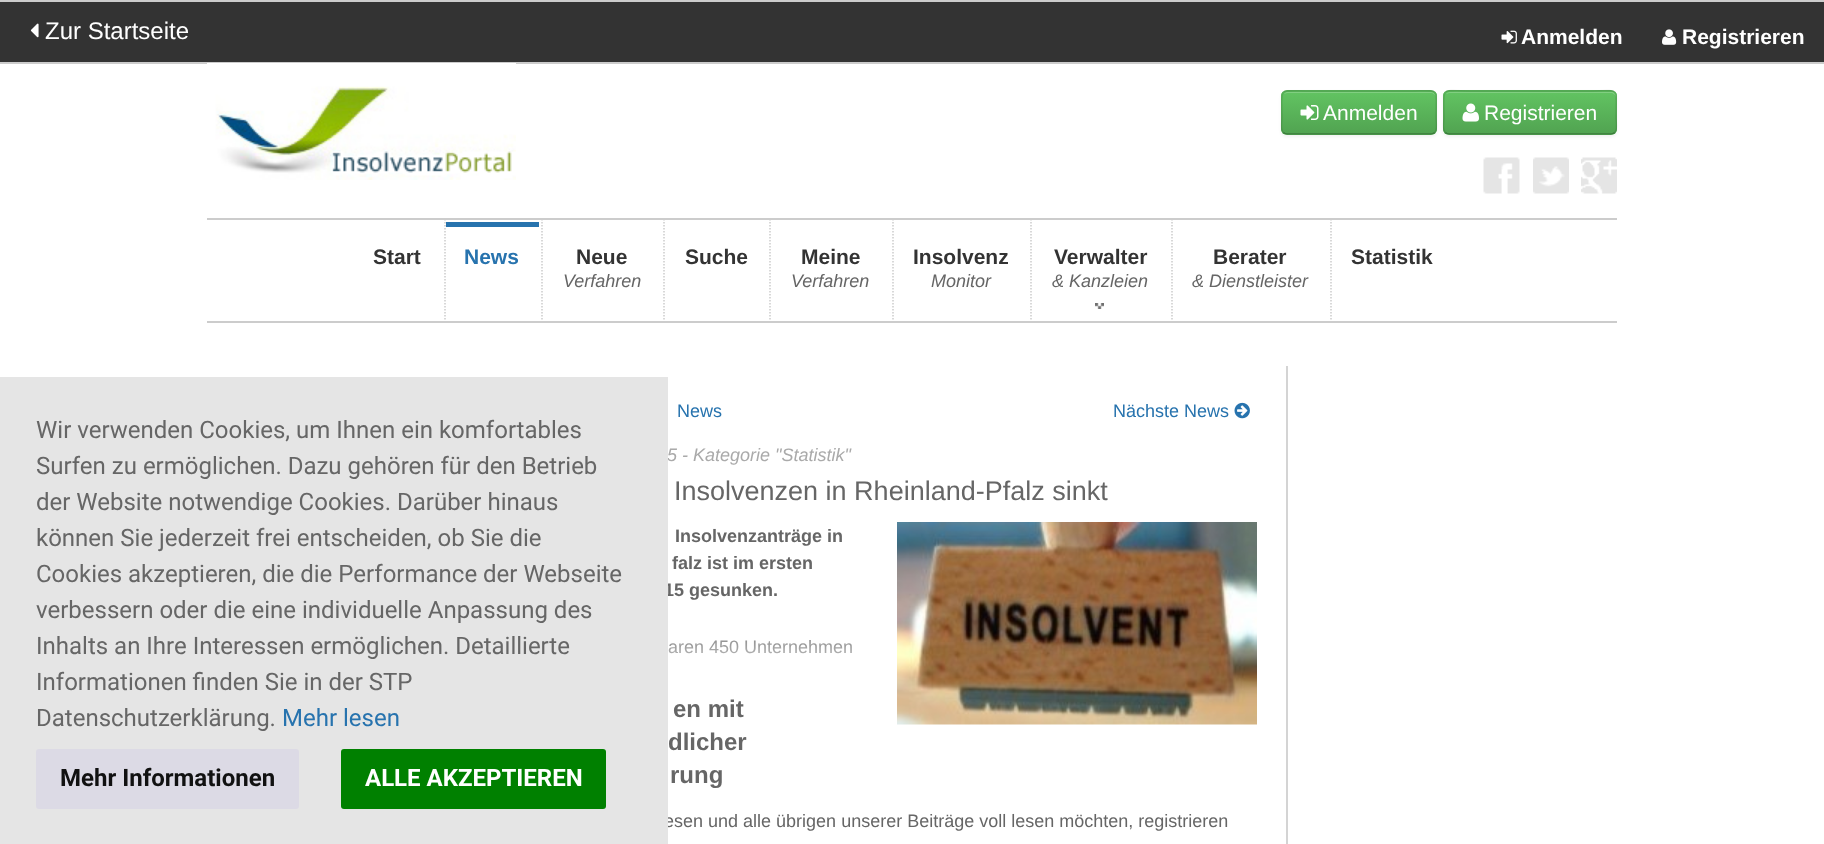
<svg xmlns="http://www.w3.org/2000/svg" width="1824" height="844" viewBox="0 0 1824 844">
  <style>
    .t1 { font: 24px Liberation Sans; fill: #fff; }
    .t2 { font: bold 21px Liberation Sans; fill: #fff; }
    .t3 { font: 21px Liberation Sans; fill: #fff; }
    .t4 { font: bold 21px Liberation Sans; fill: #333; }
    .t5 { font: bold 21px Liberation Sans; fill: #2773ae; }
    .t6 { font: italic 18px Liberation Sans; fill: #666; }
    .t7 { font: 18px Liberation Sans; fill: #2773ae; }
    .t8 { font: italic 18px Liberation Sans; fill: #aaa; }
    .t9 { font: 27px Liberation Sans; fill: #666; }
    .t10 { font: bold 18px Liberation Sans; fill: #666; }
    .t11 { font: 18px Liberation Sans; fill: #666; }
    .t12 { font: bold 24px Liberation Sans; fill: #666; }
    .t13 { font: 24px Roboto; fill: #666; }
    .t14 { font: 24px Roboto; fill: #2773ae; }
    .t15 { font: bold 24px Roboto; fill: #111; }
    .t16 { font: bold 24px Roboto; fill: #fff; }
  </style>
  <defs>
    <clipPath id="clip1"><rect x="1281" y="90" width="156" height="45" rx="6"/></clipPath>
    <linearGradient id="g1" gradientUnits="userSpaceOnUse" x1="1359" y1="91" x2="1359" y2="134"><stop offset="0" stop-color="#62c462"/><stop offset="1" stop-color="#51a351"/></linearGradient>
    <clipPath id="clip2"><rect x="1443" y="90" width="174" height="45" rx="6"/></clipPath>
    <linearGradient id="g2" gradientUnits="userSpaceOnUse" x1="1530" y1="91" x2="1530" y2="134"><stop offset="0" stop-color="#62c462"/><stop offset="1" stop-color="#51a351"/></linearGradient>
    <linearGradient id="g3" gradientUnits="userSpaceOnUse" x1="717" y1="618" x2="717" y2="693"><stop offset="0" stop-color="#fff" stop-opacity="0"/><stop offset="1" stop-color="#fff"/></linearGradient>
  </defs>
  <rect width="100%" height="100%" fill="#fff"/>
  <rect x="0" y="2" width="1824" height="60" fill="#333"/>
  <rect x="0" y="0" width="1824" height="2" fill="#ccc"/>
  <rect x="0" y="62" width="1824" height="2" fill="#ccc"/>
  <image x="30" y="23" width="9" height="15" href="images/1.png"/>
  <text x="45" y="39" class="t1">Zur Startseite</text>
  <image x="1501" y="30" width="16" height="14" href="images/2.png"/>
  <text x="1521" y="44" class="t2">Anmelden</text>
  <image x="1662" y="29" width="15" height="16" href="images/3.png"/>
  <text x="1682" y="44" class="t2">Registrieren</text>
  <image x="207" y="63" width="309" height="117" href="images/4.png"/>
  <rect x="1281" y="92" width="156" height="45" rx="6" fill="#0000000d" filter="blur(1.5px)"/>
  <rect x="1281" y="90" width="156" height="45" rx="6" fill="#5bb75b"/>
  <g clip-path="url(#clip1)">
    <rect x="1281" y="92" width="156" height="42" fill="url(#g1)"/>
  </g>
  <path d="M1287 93H1431C1433 93 1436 95 1436 98C1436 95 1434 92 1431 92H1287C1286 92 1285 93 1284 94Z" fill="#81cf81"/>
  <path d="M1434.5 132.5C1433.5 133.5 1432.5 134 1431 134H1287C1285.5 134 1284.5 133.5 1283.5 132.5" fill="none" stroke="#00000040" stroke-width="1.5"/>
  <path d="M1283.5 132.5C1280 129.5 1282 121.5 1282 118C1282 85.5 1276.5 91 1311 91H1407C1441.5 91 1436 85.5 1436 118C1436 121.5 1438 129.5 1434.5 132.5" fill="none" stroke="#0000001a" stroke-width="1.5"/>
  <image x="1300" y="105" width="19" height="15" href="images/5.png"/>
  <text x="1323" y="120" class="t3">Anmelden</text>
  <rect x="1443" y="92" width="174" height="45" rx="6" fill="#0000000d" filter="blur(1.5px)"/>
  <rect x="1443" y="90" width="174" height="45" rx="6" fill="#5bb75b"/>
  <g clip-path="url(#clip2)">
    <rect x="1443" y="92" width="174" height="42" fill="url(#g2)"/>
  </g>
  <path d="M1449 93H1611C1613 93 1616 95 1616 98V97C1616 94 1614 92 1611 92H1450C1448 92 1447 93 1446 94Z" fill="#81cf81"/>
  <path d="M1614.5 132.5C1613.5 133.5 1612.5 134 1611 134H1449C1447.5 134 1446.5 133.5 1445.5 132.5" fill="none" stroke="#00000040" stroke-width="1.5"/>
  <path d="M1445.5 132.5C1442 129.5 1444 121.5 1444 118C1444 84.5 1438.5 91 1476 91H1584C1621.5 91 1616 84.5 1616 118C1616 121.5 1618 129.5 1614.5 132.5" fill="none" stroke="#0000001a" stroke-width="1.5"/>
  <image x="1462" y="103" width="17" height="19" href="images/6.png"/>
  <text x="1484" y="120" class="t3">Registrieren</text>
  <image x="1483" y="157" width="37" height="37" href="images/7.png"/>
  <image x="1533" y="157" width="36" height="37" href="images/8.png"/>
  <image x="1581" y="157" width="36" height="37" href="images/9.png"/>
  <rect x="207" y="218" width="1410" height="2" fill="#ccc"/>
  <rect x="207" y="321" width="1410" height="2" fill="#ccc"/>
  <path d="M445 219V321" fill="none" stroke="#ccc" stroke-width="1.5" stroke-dasharray="1.5 1.5"/>
  <text x="373" y="264" class="t4">Start</text>
  <path d="M542 219V321" fill="none" stroke="#ccc" stroke-width="1.5" stroke-dasharray="1.5 1.5"/>
  <rect x="446" y="222" width="93" height="5" fill="#2773ae"/>
  <text x="464" y="264" class="t5">News</text>
  <path d="M664 219V321" fill="none" stroke="#ccc" stroke-width="1.5" stroke-dasharray="1.5 1.5"/>
  <text x="576" y="264" class="t4">Neue</text>
  <text x="563" y="287" class="t6">Verfahren</text>
  <path d="M770 219V321" fill="none" stroke="#ccc" stroke-width="1.5" stroke-dasharray="1.5 1.5"/>
  <text x="685" y="264" class="t4">Suche</text>
  <path d="M893 219V321" fill="none" stroke="#ccc" stroke-width="1.5" stroke-dasharray="1.5 1.5"/>
  <text x="801" y="264" class="t4">Meine</text>
  <text x="791" y="287" class="t6">Verfahren</text>
  <path d="M1031 219V321" fill="none" stroke="#ccc" stroke-width="1.5" stroke-dasharray="1.5 1.5"/>
  <text x="913" y="264" class="t4">Insolvenz</text>
  <text x="931" y="287" class="t6">Monitor</text>
  <path d="M1172 219V321" fill="none" stroke="#ccc" stroke-width="1.5" stroke-dasharray="1.5 1.5"/>
  <text x="1054" y="264" class="t4">Verwalter</text>
  <image x="1095" y="303" width="9" height="6" href="images/10.png"/>
  <text x="1052" y="287" class="t6">&amp; Kanzleien</text>
  <path d="M1331 219V321" fill="none" stroke="#ccc" stroke-width="1.5" stroke-dasharray="1.5 1.5"/>
  <text x="1213" y="264" class="t4">Berater</text>
  <text x="1192" y="287" class="t6">&amp; Dienstleister</text>
  <text x="1351" y="264" class="t4">Statistik</text>
  <rect x="1286" y="366" width="2" height="478" fill="#d4d4d4"/>
  <text x="677" y="417" class="t7">News</text>
  <text x="1113" y="417" class="t7">Nächste News</text>
  <image x="1234" y="402" width="16" height="17" href="images/11.png"/>
  <text x="667" y="461" class="t8">5 - Kategorie "Statistik"</text>
  <text x="674" y="500" class="t9">Insolvenzen in Rheinland-Pfalz sinkt</text>
  <text x="675" y="542" class="t10">Insolvenzanträge in</text>
  <text x="672" y="569" class="t10">falz ist im ersten</text>
  <text x="664" y="596" class="t10">15 gesunken.</text>
  <image x="897" y="522" width="360" height="203" href="images/12.png"/>
  <text x="668" y="653" class="t11">aren 450 Unternehmen</text>
  <rect x="668" y="639" width="184" height="15" fill="url(#g3)"/>
  <text x="673" y="717" class="t12">en mit</text>
  <text x="668" y="750" class="t12">dlicher</text>
  <text x="670" y="783" class="t12">rung</text>
  <text x="664" y="827" class="t11">esen und alle übrigen unserer Beiträge voll lesen möchten, registrieren</text>
  <rect x="0" y="377" width="668" height="467" fill="#e5e5e5"/>
  <text x="36" y="438" class="t13">Wir verwenden Cookies, um Ihnen ein komfortables</text>
  <text x="36" y="474" class="t13">Surfen zu ermöglichen. Dazu gehören für den Betrieb</text>
  <text x="36" y="510" class="t13">der Website notwendige Cookies. Darüber hinaus</text>
  <text x="36" y="546" class="t13">können Sie jederzeit frei entscheiden, ob Sie die</text>
  <text x="36" y="582" class="t13">Cookies akzeptieren, die die Performance der Webseite</text>
  <text x="36" y="618" class="t13">verbessern oder die eine individuelle Anpassung des</text>
  <text x="36" y="654" class="t13">Inhalts an Ihre Interessen ermöglichen. Detaillierte</text>
  <text x="36" y="690" class="t13">Informationen finden Sie in der STP</text>
  <text x="36" y="726" class="t13">Datenschutzerklärung.</text>
  <text x="282" y="726" class="t14">Mehr lesen</text>
  <rect x="36" y="749" width="263" height="60" rx="3" fill="#dcdae5"/>
  <text x="60" y="786" class="t15">Mehr Informationen</text>
  <rect x="341" y="749" width="265" height="60" rx="3" fill="#008000"/>
  <text x="365" y="786" class="t16">ALLE AKZEPTIEREN</text>
</svg>
